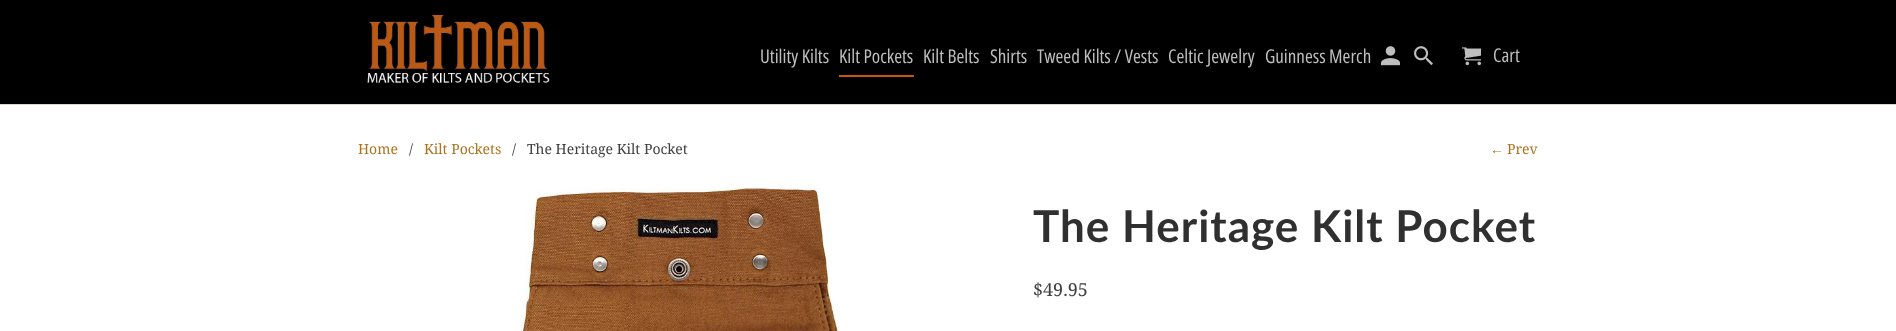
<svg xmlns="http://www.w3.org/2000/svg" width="1896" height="331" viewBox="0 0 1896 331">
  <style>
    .t1 { font: 19px Open Sans Condensed; fill: #bebebe; }
    .t2 { font: 14px Noto Serif; fill: #af731f; }
    .t3 { font: 14px Noto Serif; fill: #404040; }
    .t4 { font: 14px Liberation Serif; fill: #af731f; }
    .t5 { font: bold 44px Lato; letter-spacing: 1px; fill: #303030; }
    .t6 { font: 18px Noto Serif; fill: #404040; }
  </style>
  <rect width="100%" height="100%" fill="#fff"/>
  <rect x="0" y="0" width="1896" height="104" fill="#000"/>
  <rect x="0" y="104" width="1896" height="1" fill="#ded6c7"/>
  <image x="367" y="15" width="183" height="68" href="images/1.png"/>
  <text x="760" y="63" class="t1">Utility Kilts</text>
  <text x="839" y="63" class="t1">Kilt Pockets</text>
  <rect x="839" y="75" width="75" height="2" fill="#cc5312"/>
  <text x="923" y="63" class="t1">Kilt Belts</text>
  <text x="990" y="63" class="t1">Shirts</text>
  <text x="1037" y="63" class="t1">Tweed Kilts / Vests</text>
  <text x="1168" y="63" class="t1">Celtic Jewelry</text>
  <text x="1265" y="63" class="t1">Guinness Merch</text>
  <image x="1381" y="46" width="19" height="20" href="images/2.png"/>
  <image x="1414" y="46" width="19" height="20" href="images/3.png"/>
  <image x="1462" y="47" width="19" height="19" href="images/4.png"/>
  <text x="1493" y="62" class="t1">Cart</text>
  <text x="358" y="154" class="t2">Home</text>
  <text x="409" y="154" class="t3">/</text>
  <text x="424" y="154" class="t2">Kilt Pockets</text>
  <text x="512" y="154" class="t3">/</text>
  <text x="527" y="154" class="t3">The Heritage Kilt Pocket</text>
  <text x="1490" y="154" class="t4">←</text>
  <text x="1507" y="154" class="t2">Prev</text>
  <image x="515" y="188" width="325" height="143" href="images/5.png"/>
  <text x="1033" y="242" class="t5">The Heritage Kilt Pocket</text>
  <text x="1033" y="296" class="t6">$49.95</text>
</svg>
